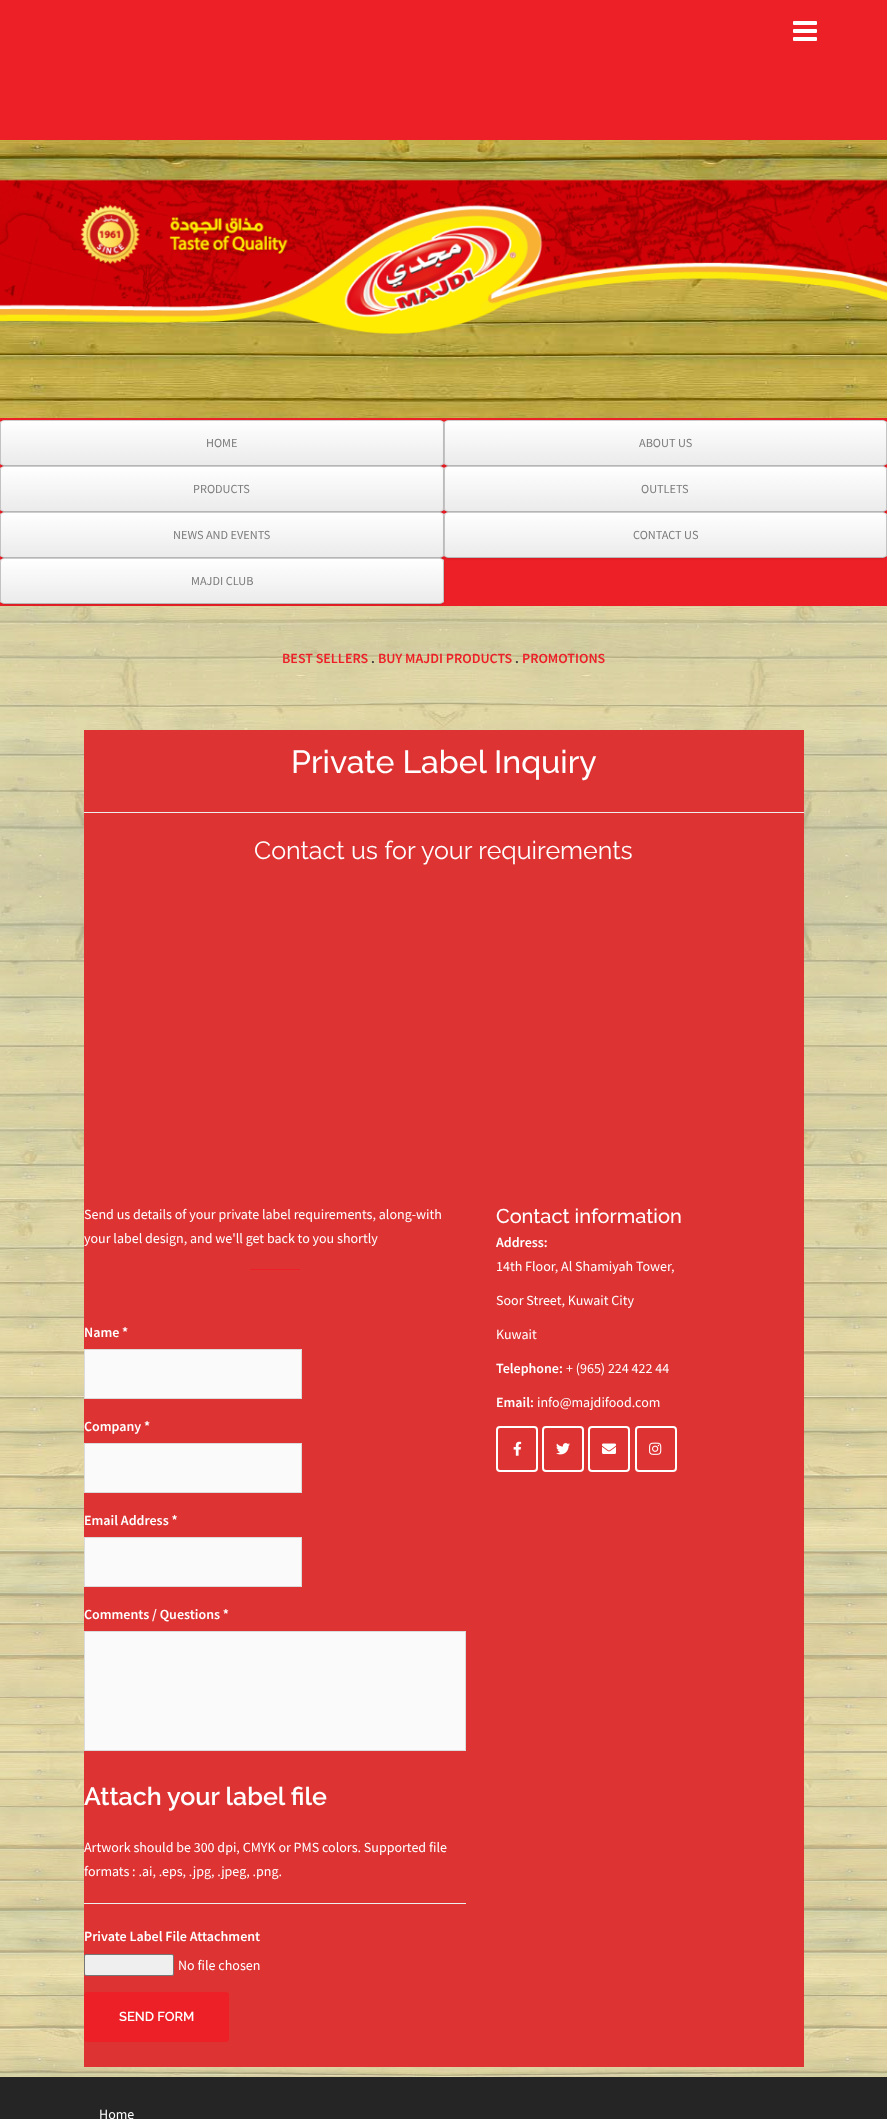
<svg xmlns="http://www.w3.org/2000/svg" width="887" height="2119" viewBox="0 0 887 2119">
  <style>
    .t1 { font: 12.25px Source Sans Pro; fill: #7b7b7b; }
    .t2 { font: 600 14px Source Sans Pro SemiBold; fill: #ed2027; }
    .t3 { font: 600 14px Source Sans Pro SemiBold; fill: #333; }
    .t4 { font: 500 32px Raleway; fill: #fff; }
    .t5 { font: 25px Raleway; fill: #fff; }
    .t6 { font: 14px Source Sans Pro; fill: #fff; }
    .t7 { font: 600 14px Source Sans Pro SemiBold; fill: #fff; }
    .t8 { font: 600 25px Raleway; fill: #fff; }
    .t9 { font: 600 13px Raleway; fill: #fff; }
    .t10 { font: 500 20px Raleway; fill: #fff; }
  </style>
  <defs>
    <clipPath id="clip1"><rect x="0" y="420" width="444" height="46" rx="4"/></clipPath>
    <linearGradient id="g1" gradientUnits="userSpaceOnUse" x1="1" y1="465" x2="1" y2="421"><stop offset="0" stop-color="#ebebeb"/><stop offset="1" stop-color="#fff"/></linearGradient>
    <clipPath id="clip2"><rect x="444" y="420" width="443" height="46" rx="4"/></clipPath>
    <linearGradient id="g2" gradientUnits="userSpaceOnUse" x1="445" y1="465" x2="445" y2="421"><stop offset="0" stop-color="#ebebeb"/><stop offset="1" stop-color="#fff"/></linearGradient>
    <clipPath id="clip3"><rect x="0" y="466" width="444" height="46" rx="4"/></clipPath>
    <linearGradient id="g3" gradientUnits="userSpaceOnUse" x1="1" y1="511" x2="1" y2="467"><stop offset="0" stop-color="#ebebeb"/><stop offset="1" stop-color="#fff"/></linearGradient>
    <clipPath id="clip4"><rect x="444" y="466" width="443" height="46" rx="4"/></clipPath>
    <linearGradient id="g4" gradientUnits="userSpaceOnUse" x1="445" y1="511" x2="445" y2="467"><stop offset="0" stop-color="#ebebeb"/><stop offset="1" stop-color="#fff"/></linearGradient>
    <clipPath id="clip5"><rect x="0" y="512" width="444" height="46" rx="4"/></clipPath>
    <linearGradient id="g5" gradientUnits="userSpaceOnUse" x1="1" y1="557" x2="1" y2="513"><stop offset="0" stop-color="#ebebeb"/><stop offset="1" stop-color="#fff"/></linearGradient>
    <clipPath id="clip6"><rect x="444" y="512" width="443" height="46" rx="4"/></clipPath>
    <linearGradient id="g6" gradientUnits="userSpaceOnUse" x1="445" y1="557" x2="445" y2="513"><stop offset="0" stop-color="#ebebeb"/><stop offset="1" stop-color="#fff"/></linearGradient>
    <clipPath id="clip7"><rect x="0" y="558" width="444" height="46" rx="4"/></clipPath>
    <linearGradient id="g7" gradientUnits="userSpaceOnUse" x1="1" y1="603" x2="1" y2="559"><stop offset="0" stop-color="#ebebeb"/><stop offset="1" stop-color="#fff"/></linearGradient>
  </defs>
  <rect width="100%" height="100%" fill="#fff"/>
  <image x="0" y="140" width="887" height="1937" href="images/1.png"/>
  <rect x="0" y="0" width="887" height="140" fill="#ed2027"/>
  <image x="793" y="21" width="24" height="20" href="images/2.png"/>
  <image x="0" y="179" width="887" height="155" href="images/3.png"/>
  <rect x="0" y="418" width="887" height="188" fill="#ed2027"/>
  <rect x="0" y="421" width="444" height="46" rx="4" fill="#0000001a" filter="blur(1px)"/>
  <g clip-path="url(#clip1)">
    <rect x="0" y="421" width="444" height="44" fill="url(#g1)"/>
  </g>
  <path d="M1.5 421.5C2 421 3 420.5 4 420.5H440C441 420.5 442 421 442.5 421.5" fill="none" stroke="#cdcdcd"/>
  <path d="M442.5 421.5C443 422 443.5 423 443.5 424V462C443.5 463 443 464 442.5 464.5" fill="none" stroke="#c2c2c2"/>
  <path d="M442.5 464.5C442 465 441 465.5 440 465.5H4C3 465.5 2 465 1.5 464.5" fill="none" stroke="#b7b7b7"/>
  <path d="M1.5 464.5C1 464 .5 463 .5 462V424C.5 423 1 422 1.5 421.5" fill="none" stroke="#c2c2c2"/>
  <text x="206" y="447" class="t1">HOME</text>
  <rect x="444" y="421" width="443" height="46" rx="4" fill="#0000001a" filter="blur(1px)"/>
  <g clip-path="url(#clip2)">
    <rect x="444" y="421" width="443" height="44" fill="url(#g2)"/>
  </g>
  <path d="M445.5 421.5C446 421 447 420.5 448 420.5H883C884 420.5 885 421 885.5 421.5" fill="none" stroke="#cdcdcd"/>
  <path d="M885.5 421.5C886 422 886.5 423 886.5 424V462C886.5 463 886 464 885.5 464.5" fill="none" stroke="#c2c2c2"/>
  <path d="M885.5 464.5C885 465 884 465.5 883 465.5H448C447 465.5 446 465 445.5 464.5" fill="none" stroke="#b7b7b7"/>
  <path d="M445.5 464.5C445 464 444.5 463 444.5 462V424C444.5 423 445 422 445.5 421.5" fill="none" stroke="#c2c2c2"/>
  <text x="639" y="447" class="t1">ABOUT US</text>
  <rect x="0" y="467" width="444" height="46" rx="4" fill="#0000001a" filter="blur(1px)"/>
  <g clip-path="url(#clip3)">
    <rect x="0" y="467" width="444" height="44" fill="url(#g3)"/>
  </g>
  <path d="M1.5 467.5C2 467 3 466.5 4 466.5H440C441 466.5 442 467 442.5 467.5" fill="none" stroke="#cdcdcd"/>
  <path d="M442.5 467.5C443 468 443.5 469 443.5 470V508C443.5 509 443 510 442.5 510.5" fill="none" stroke="#c2c2c2"/>
  <path d="M442.5 510.5C442 511 441 511.5 440 511.5H4C3 511.5 2 511 1.5 510.5" fill="none" stroke="#b7b7b7"/>
  <path d="M1.5 510.5C1 510 .5 509 .5 508V470C.5 469 1 468 1.5 467.5" fill="none" stroke="#c2c2c2"/>
  <text x="193" y="493" class="t1">PRODUCTS</text>
  <rect x="444" y="467" width="443" height="46" rx="4" fill="#0000001a" filter="blur(1px)"/>
  <g clip-path="url(#clip4)">
    <rect x="444" y="467" width="443" height="44" fill="url(#g4)"/>
  </g>
  <path d="M445.5 467.5C446 467 447 466.5 448 466.5H883C884 466.5 885 467 885.5 467.5" fill="none" stroke="#cdcdcd"/>
  <path d="M885.5 467.5C886 468 886.5 469 886.5 470V508C886.5 509 886 510 885.5 510.5" fill="none" stroke="#c2c2c2"/>
  <path d="M885.5 510.5C885 511 884 511.5 883 511.5H448C447 511.5 446 511 445.5 510.5" fill="none" stroke="#b7b7b7"/>
  <path d="M445.5 510.5C445 510 444.5 509 444.5 508V470C444.5 469 445 468 445.5 467.5" fill="none" stroke="#c2c2c2"/>
  <text x="641" y="493" class="t1">OUTLETS</text>
  <rect x="0" y="513" width="444" height="46" rx="4" fill="#0000001a" filter="blur(1px)"/>
  <g clip-path="url(#clip5)">
    <rect x="0" y="513" width="444" height="44" fill="url(#g5)"/>
  </g>
  <path d="M1.5 513.5C2 513 3 512.5 4 512.5H440C441 512.5 442 513 442.5 513.5" fill="none" stroke="#cdcdcd"/>
  <path d="M442.5 513.5C443 514 443.5 515 443.5 516V554C443.5 555 443 556 442.5 556.5" fill="none" stroke="#c2c2c2"/>
  <path d="M442.5 556.5C442 557 441 557.5 440 557.5H4C3 557.5 2 557 1.5 556.5" fill="none" stroke="#b7b7b7"/>
  <path d="M1.5 556.5C1 556 .5 555 .5 554V516C.5 515 1 514 1.5 513.5" fill="none" stroke="#c2c2c2"/>
  <text x="173" y="539" class="t1">NEWS AND EVENTS</text>
  <rect x="444" y="513" width="443" height="46" rx="4" fill="#0000001a" filter="blur(1px)"/>
  <g clip-path="url(#clip6)">
    <rect x="444" y="513" width="443" height="44" fill="url(#g6)"/>
  </g>
  <path d="M445.5 513.5C446 513 447 512.5 448 512.5H883C884 512.5 885 513 885.5 513.5" fill="none" stroke="#cdcdcd"/>
  <path d="M885.5 513.5C886 514 886.5 515 886.5 516V554C886.5 555 886 556 885.5 556.5" fill="none" stroke="#c2c2c2"/>
  <path d="M885.5 556.5C885 557 884 557.5 883 557.5H448C447 557.5 446 557 445.5 556.5" fill="none" stroke="#b7b7b7"/>
  <path d="M445.5 556.5C445 556 444.5 555 444.5 554V516C444.5 515 445 514 445.5 513.5" fill="none" stroke="#c2c2c2"/>
  <text x="633" y="539" class="t1">CONTACT US</text>
  <rect x="0" y="559" width="444" height="46" rx="4" fill="#0000001a" filter="blur(1px)"/>
  <g clip-path="url(#clip7)">
    <rect x="0" y="559" width="444" height="44" fill="url(#g7)"/>
  </g>
  <path d="M1.5 559.5C2 559 3 558.5 4 558.5H440C441 558.5 442 559 442.5 559.5" fill="none" stroke="#cdcdcd"/>
  <path d="M442.5 559.5C443 560 443.5 561 443.5 562V600C443.5 601 443 602 442.5 602.5" fill="none" stroke="#c2c2c2"/>
  <path d="M442.5 602.5C442 603 441 603.5 440 603.5H4C3 603.5 2 603 1.5 602.5" fill="none" stroke="#b7b7b7"/>
  <path d="M1.5 602.5C1 602 .5 601 .5 600V562C.5 561 1 560 1.5 559.5" fill="none" stroke="#c2c2c2"/>
  <text x="191" y="585" class="t1">MAJDI CLUB</text>
  <rect x="0" y="606" width="887" height="114" fill="#ffffff80"/>
  <text x="282" y="663" class="t2">BEST SELLERS</text>
  <text x="371" y="663" class="t3">.</text>
  <text x="378" y="663" class="t2">BUY MAJDI PRODUCTS</text>
  <text x="515" y="663" class="t3">.</text>
  <text x="522" y="663" class="t2">PROMOTIONS</text>
  <rect x="0" y="720" width="887" height="1357" fill="#ffffff80"/>
  <rect x="84" y="730" width="720" height="1337" fill="#d33"/>
  <text x="291" y="773" class="t4">Private Label Inquiry</text>
  <rect x="84" y="812" width="720" height="1" fill="#eee"/>
  <text x="254" y="859" class="t5">Contact us for your requirements</text>
  <text x="84" y="1219" class="t6">Send us details of your private label requirements, along-with</text>
  <text x="84" y="1243" class="t6">your label design, and we'll get back to you shortly</text>
  <rect x="250" y="1269" width="50" height="1" fill="#ed2027"/>
  <text x="84" y="1337" class="t7">Name *</text>
  <rect x="84.5" y="1349.5" width="217" height="49" fill="#fafafa" stroke="#dbdbdb"/>
  <text x="84" y="1431" class="t7">Company *</text>
  <rect x="84.5" y="1443.5" width="217" height="49" fill="#fafafa" stroke="#dbdbdb"/>
  <text x="84" y="1525" class="t7">Email Address *</text>
  <rect x="84.5" y="1537.5" width="217" height="49" fill="#fafafa" stroke="#dbdbdb"/>
  <text x="84" y="1619" class="t7">Comments / Questions *</text>
  <rect x="84.5" y="1631.5" width="381" height="119" fill="#fafafa" stroke="#dbdbdb"/>
  <text x="84" y="1805" class="t8">Attach your label file</text>
  <text x="84" y="1852" class="t6">Artwork should be 300 dpi, CMYK or PMS colors. Supported file</text>
  <text x="84" y="1876" class="t6">formats : .ai, .eps, .jpg, .jpeg, .png.</text>
  <rect x="84" y="1903" width="382" height="1" fill="#eee"/>
  <text x="84" y="1941" class="t7">Private Label File Attachment</text>
  <rect x="84.5" y="1954.5" width="89" height="21" rx="1.5" fill="#efefef" stroke="#767676"/>
  <text x="178" y="1970" class="t6">No file chosen</text>
  <rect x="84.5" y="1992.5" width="144" height="49" rx="2.5" fill="#ed2027" stroke="#ed2027"/>
  <text x="119" y="2021" class="t9">SEND FORM</text>
  <text x="496" y="1223" class="t10">Contact information</text>
  <text x="496" y="1247" class="t7">Address:</text>
  <text x="496" y="1271" class="t6">14th Floor, Al Shamiyah Tower,</text>
  <text x="496" y="1305" class="t6">Soor Street, Kuwait City</text>
  <text x="496" y="1339" class="t6">Kuwait</text>
  <text x="496" y="1373" class="t7">Telephone:</text>
  <text x="566" y="1373" class="t6">+ (965) 224 422 44</text>
  <text x="496" y="1407" class="t7">Email:</text>
  <text x="537" y="1407" class="t6">info@majdifood.com</text>
  <rect x="497" y="1427" width="40" height="44" rx="3" fill="none" stroke="#fff" stroke-width="2"/>
  <image x="513" y="1441" width="9" height="15" href="images/4.png"/>
  <rect x="543" y="1427" width="40" height="44" rx="3" fill="none" stroke="#fff" stroke-width="2"/>
  <image x="556" y="1443" width="14" height="12" href="images/5.png"/>
  <rect x="589" y="1427" width="40" height="44" rx="3" fill="none" stroke="#fff" stroke-width="2"/>
  <image x="602" y="1443" width="14" height="11" href="images/6.png"/>
  <rect x="636" y="1427" width="40" height="44" rx="3" fill="none" stroke="#fff" stroke-width="2"/>
  <image x="649" y="1442" width="13" height="13" href="images/7.png"/>
  <rect x="0" y="2077" width="887" height="42" fill="#252525"/>
  <text x="99" y="2119" class="t6">Home</text>
</svg>
